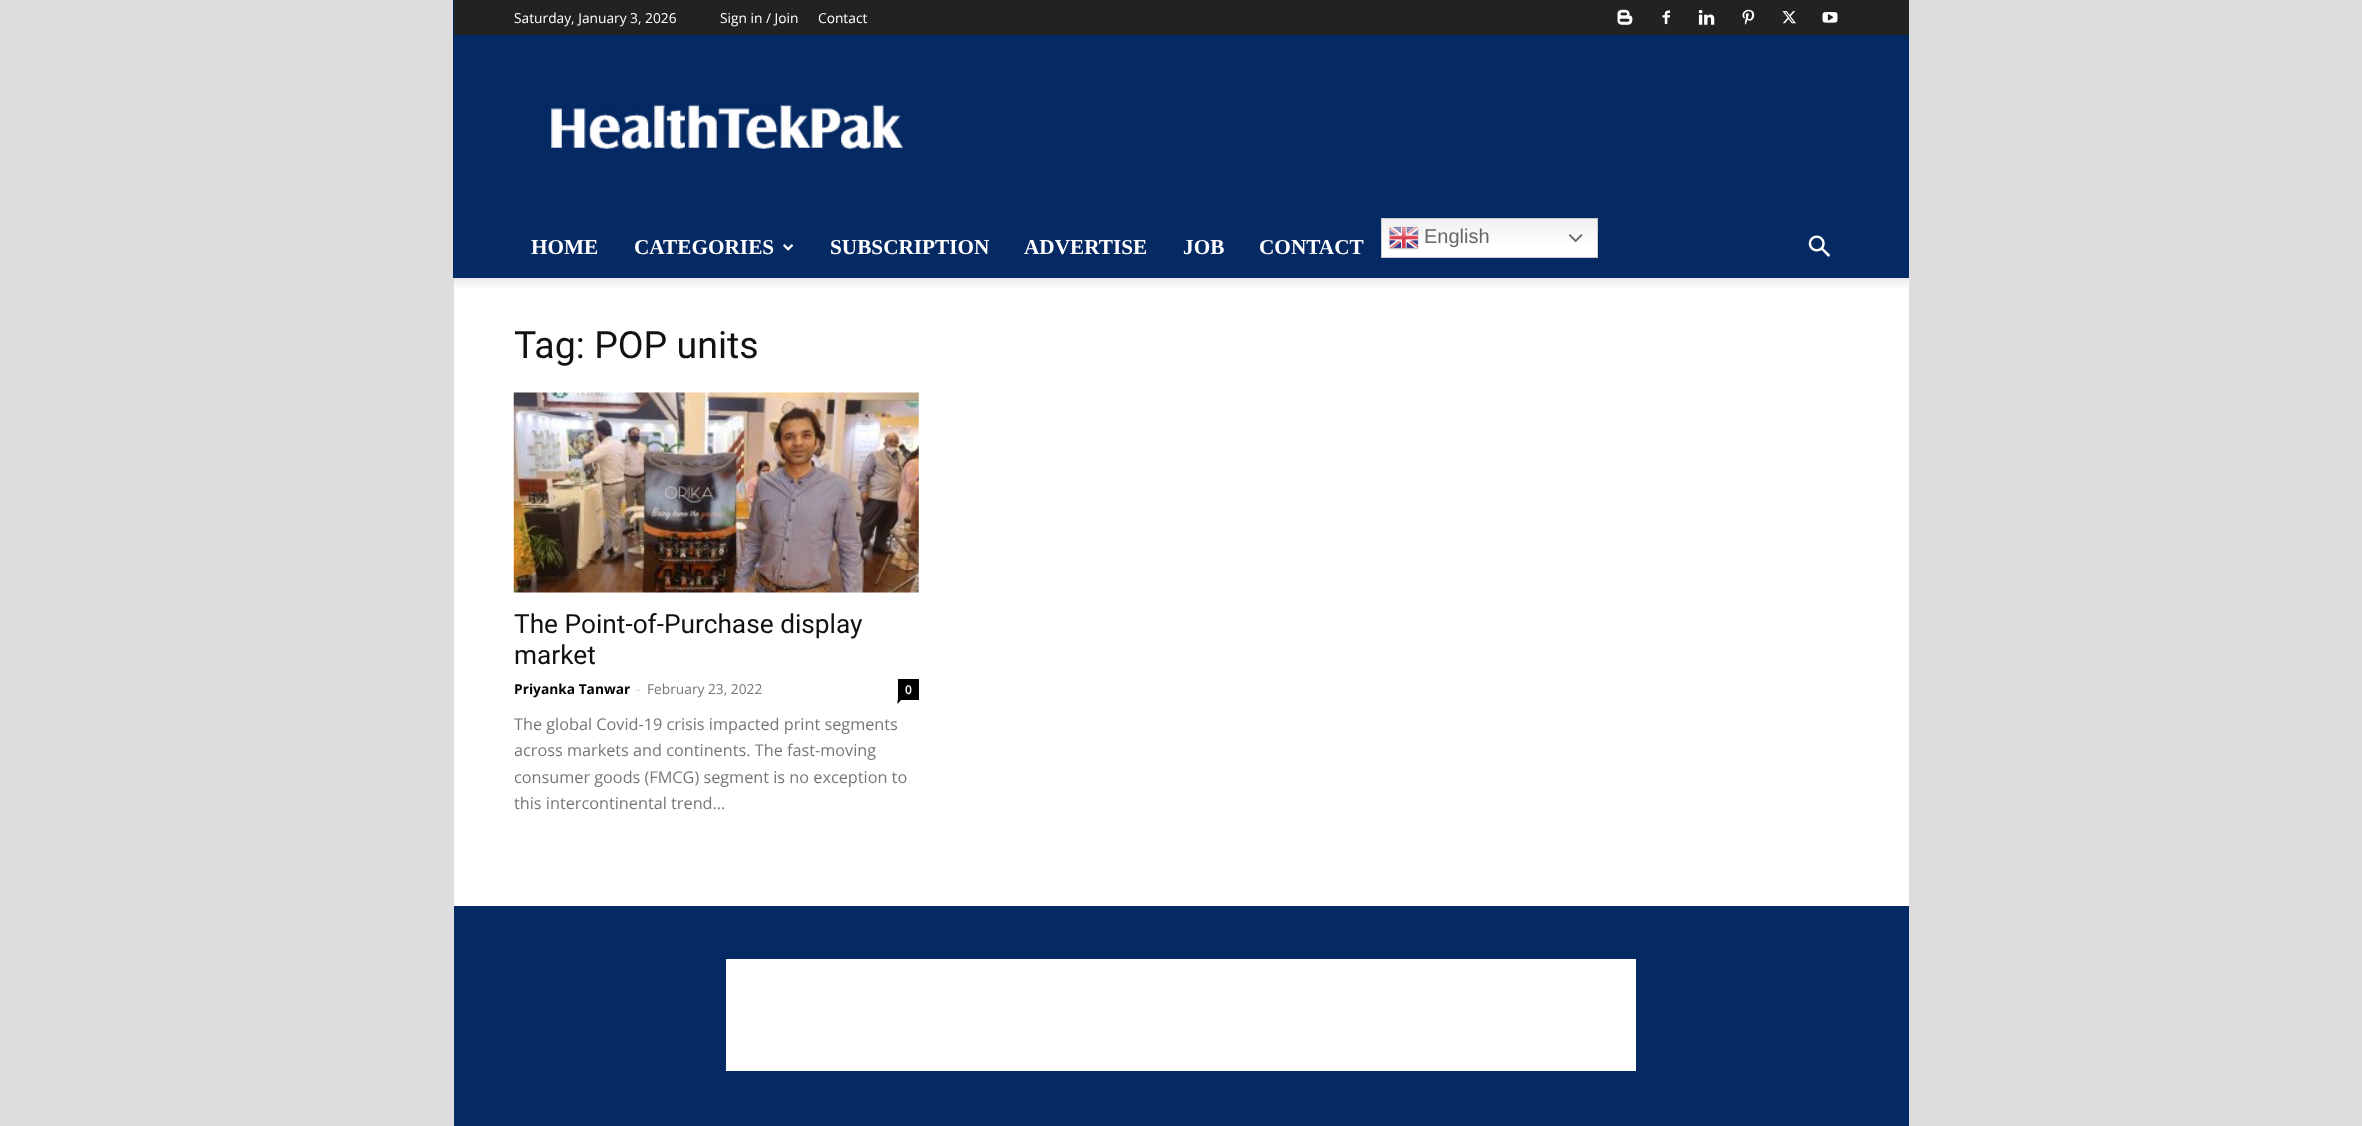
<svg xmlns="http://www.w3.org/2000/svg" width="2362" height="1126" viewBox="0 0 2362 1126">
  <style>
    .t1 { font: 13.75px Open Sans; fill: #fff; }
    .t2 { font: bold 21.25px Liberation Serif; fill: #fff; }
    .t3 { font: 20px Liberation Sans; fill: #666; }
    .t4 { font: 37.5px Roboto; fill: #111; }
    .t5 { font: 26.25px Roboto; fill: #111; }
    .t6 { font: bold 13.75px Open Sans; fill: #000; }
    .t7 { font: 13.75px Open Sans; fill: #ccc; }
    .t8 { font: 13.75px Open Sans; fill: #767676; }
    .t9 { font: 600 12px Open Sans; fill: #fff; }
    .t10 { font: 16.25px Open Sans; fill: #767676; }
  </style>
  <defs>
    <linearGradient id="g1" gradientUnits="userSpaceOnUse" x1="1489" y1="218" x2="1489" y2="258"><stop offset="0" stop-color="#efefef"/><stop offset="0.7" stop-color="#fff"/></linearGradient>
  </defs>
  <rect width="100%" height="100%" fill="#ddd"/>
  <rect x="453" y="0" width="1456" height="278" fill="#052962"/>
  <rect x="454" y="0" width="1455" height="35" fill="#222"/>
  <text x="514" y="23" class="t1">Saturday, January 3, 2026</text>
  <text x="720" y="23" class="t1">Sign in / Join</text>
  <text x="818" y="23" class="t1">Contact</text>
  <image x="1617" y="9" width="16" height="16" href="images/1.png"/>
  <image x="1662" y="10" width="8" height="15" href="images/2.png"/>
  <image x="1698" y="9" width="17" height="16" href="images/3.png"/>
  <image x="1742" y="9" width="13" height="16" href="images/4.png"/>
  <image x="1782" y="11" width="14" height="13" href="images/5.png"/>
  <image x="1822" y="12" width="16" height="11" href="images/6.png"/>
  <image x="550" y="104" width="354" height="45" href="images/7.png"/>
  <text x="531" y="254" class="t2">HOME</text>
  <text x="634" y="254" class="t2">CATEGORIES</text>
  <image x="783" y="244" width="11" height="7" href="images/8.png"/>
  <text x="830" y="254" class="t2">SUBSCRIPTION</text>
  <text x="1024" y="254" class="t2">ADVERTISE</text>
  <text x="1183" y="254" class="t2">JOB</text>
  <text x="1259" y="254" class="t2">CONTACT</text>
  <rect x="1382" y="219" width="215" height="38" fill="url(#g1)"/>
  <rect x="1381.5" y="218.5" width="216" height="39" fill="none" stroke="#ccc"/>
  <image x="1388" y="226" width="31" height="24" href="images/9.png"/>
  <text x="1424" y="243" class="t3">English</text>
  <image x="1569" y="234" width="14" height="9" href="images/10.png"/>
  <image x="1808" y="235" width="22" height="22" href="images/11.png"/>
  <rect x="454" y="278" width="1455" height="628" fill="#fff"/>
  <image x="454" y="278" width="1455" height="10" href="images/12.png"/>
  <text x="514" y="358" class="t4">Tag: POP units</text>
  <image x="513" y="392" width="406" height="201" href="images/13.png"/>
  <text x="514" y="633" class="t5">The Point-of-Purchase display</text>
  <text x="514" y="664" class="t5">market</text>
  <text x="514" y="694" class="t6">Priyanka Tanwar</text>
  <text x="636" y="694" class="t7">-</text>
  <text x="647" y="694" class="t8">February 23, 2022</text>
  <rect x="898" y="679" width="21" height="21" fill="#000"/>
  <text x="905" y="694" class="t9">0</text>
  <path d="M897.5 700H901L897.5 704Z" fill="#000"/>
  <text x="514" y="730" class="t10">The global Covid-19 crisis impacted print segments</text>
  <text x="514" y="756" class="t10">across markets and continents. The fast-moving</text>
  <text x="514" y="783" class="t10">consumer goods (FMCG) segment is no exception to</text>
  <text x="514" y="809" class="t10">this intercontinental trend...</text>
  <rect x="454" y="906" width="1455" height="220" fill="#052962"/>
  <rect x="726" y="959" width="910" height="112" fill="#fff"/>
</svg>
